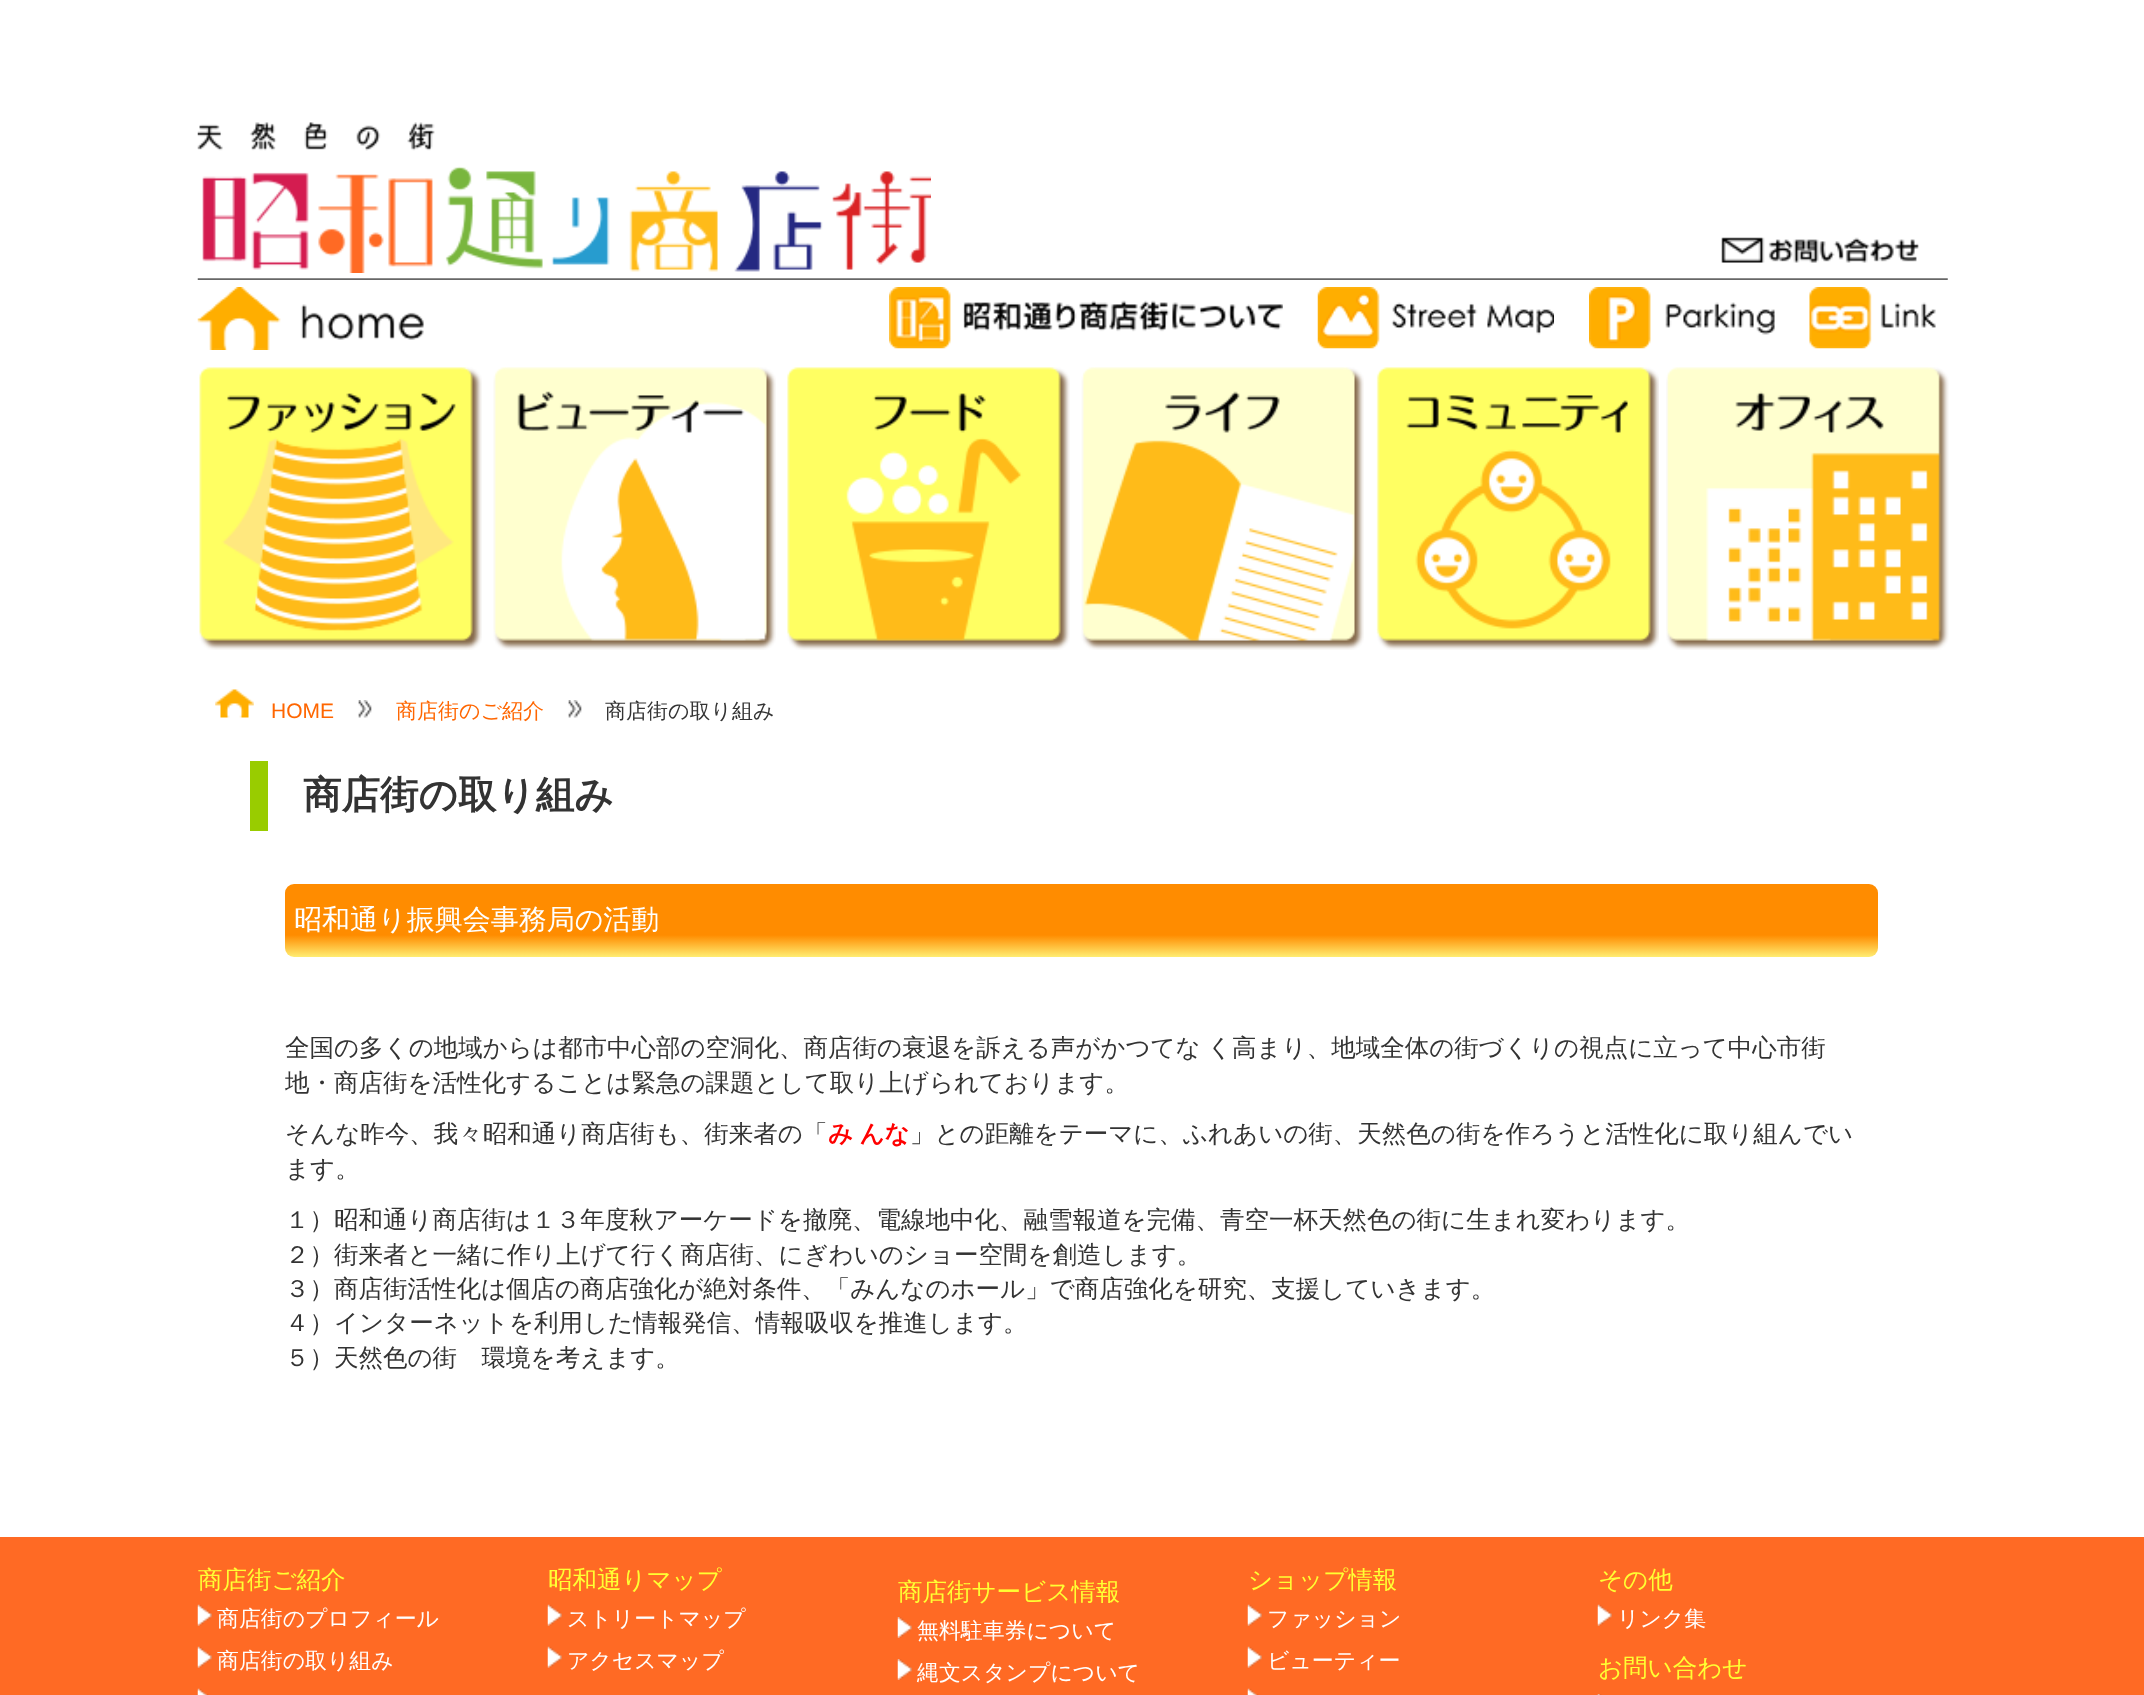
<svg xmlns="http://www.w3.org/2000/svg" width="2144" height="1695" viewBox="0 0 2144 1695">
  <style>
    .t1 { font: 21px Liberation Sans; fill: #f60; }
    .t2 { font: 500 21px WenQuanYi Zen Hei; fill: #f60; }
    .t3 { font: 500 21px WenQuanYi Zen Hei; fill: #333; }
    .t4 { font: bold 38.5px WenQuanYi Zen Hei; fill: #333; }
    .t5 { font: 500 28px WenQuanYi Zen Hei; fill: #fff; }
    .t6 { font: 500 24.5px WenQuanYi Zen Hei; fill: #333; }
    .t7 { font: bold 24.5px WenQuanYi Zen Hei; fill: #f00; }
    .t8 { font: 500 24.5px WenQuanYi Zen Hei; fill: #ff3; }
    .t9 { font: 500 21.9px WenQuanYi Zen Hei; fill: #fff; }
  </style>
  <defs>
    <linearGradient id="g1" gradientUnits="userSpaceOnUse" x1="1082" y1="884" x2="1082" y2="957"><stop offset="0" stop-color="#ff8c00"/><stop offset="0.7" stop-color="#ff8c00"/><stop offset="1" stop-color="#ffed72"/></linearGradient>
  </defs>
  <rect width="100%" height="100%" fill="#fff"/>
  <image x="197" y="278" width="1751" height="2" href="images/1.png"/>
  <image x="197" y="122" width="734" height="151" href="images/2.png"/>
  <image x="1721" y="237" width="198" height="26" href="images/3.png"/>
  <image x="197" y="287" width="227" height="63" href="images/4.png"/>
  <image x="889" y="287" width="394" height="62" href="images/5.png"/>
  <image x="1317" y="287" width="237" height="62" href="images/6.png"/>
  <image x="1589" y="287" width="186" height="62" href="images/7.png"/>
  <image x="1809" y="287" width="127" height="62" href="images/8.png"/>
  <image x="199" y="367" width="283" height="283" href="images/9.png"/>
  <image x="493" y="367" width="283" height="283" href="images/10.png"/>
  <image x="787" y="367" width="283" height="283" href="images/11.png"/>
  <image x="1081" y="367" width="283" height="283" href="images/12.png"/>
  <image x="1376" y="367" width="283" height="283" href="images/13.png"/>
  <image x="1666" y="367" width="283" height="283" href="images/14.png"/>
  <image x="215" y="689" width="39" height="29" href="images/15.png"/>
  <text x="271" y="718" class="t1">HOME</text>
  <image x="358" y="700" width="14" height="18" href="images/16.png"/>
  <text x="396" y="718" class="t2">商店街のご紹介</text>
  <image x="568" y="700" width="14" height="18" href="images/17.png"/>
  <text x="605" y="718" class="t3">商店街の取り組み</text>
  <rect x="250" y="761" width="18" height="70" fill="#9c0"/>
  <text x="303" y="808" class="t4">商店街の取り組み</text>
  <rect x="285" y="884" width="1593" height="73" rx="9" fill="url(#g1)"/>
  <text x="294" y="929" class="t5">昭和通り振興会事務局の活動</text>
  <text x="285" y="1056" word-spacing="-1" class="t6">全国の多くの地域からは都市中心部の空洞化、商店街の衰退を訴える声がかつてな く高まり、地域全体の街づくりの視点に立って中心市街</text>
  <text x="285" y="1091" class="t6">地・商店街を活性化することは緊急の課題として取り上げられております。</text>
  <text x="285" y="1142" class="t6">そんな昨今、我々昭和通り商店街も、街来者の「</text>
  <text x="828" y="1142" word-spacing="-1" class="t7">み んな</text>
  <text x="910" y="1142" class="t6">」との距離をテーマに、ふれあいの街、天然色の街を作ろうと活性化に取り組んでい</text>
  <text x="285" y="1177" class="t6">ます。</text>
  <text x="285" y="1228" class="t6">１）昭和通り商店街は１３年度秋アーケードを撤廃、電線地中化、融雪報道を完備、青空一杯天然色の街に生まれ変わります。</text>
  <text x="285" y="1263" class="t6">２）街来者と一緒に作り上げて行く商店街、にぎわいのショー空間を創造します。</text>
  <text x="285" y="1297" class="t6">３）商店街活性化は個店の商店強化が絶対条件、「みんなのホール」で商店強化を研究、支援していきます。</text>
  <text x="285" y="1331" class="t6">４）インターネットを利用した情報発信、情報吸収を推進します。</text>
  <text x="285" y="1366" class="t6">５）天然色の街　環境を考えます。</text>
  <rect x="0" y="1537" width="2144" height="158" fill="#ff6a24"/>
  <text x="198" y="1588" class="t8">商店街ご紹介</text>
  <image x="197" y="1604" width="15" height="22" href="images/18.png"/>
  <text x="217" y="1626" class="t9">商店街のプロフィール</text>
  <image x="197" y="1646" width="15" height="22" href="images/18.png"/>
  <text x="217" y="1668" class="t9">商店街の取り組み</text>
  <image x="197" y="1688" width="12" height="7" href="images/19.png"/>
  <text x="548" y="1588" class="t8">昭和通りマップ</text>
  <image x="547" y="1604" width="15" height="22" href="images/20.png"/>
  <text x="567" y="1626" class="t9">ストリートマップ</text>
  <image x="547" y="1646" width="15" height="22" href="images/20.png"/>
  <text x="567" y="1668" class="t9">アクセスマップ</text>
  <text x="898" y="1600" class="t8">商店街サービス情報</text>
  <image x="897" y="1617" width="15" height="21" href="images/21.png"/>
  <text x="917" y="1638" class="t9">無料駐車券について</text>
  <image x="897" y="1659" width="15" height="21" href="images/21.png"/>
  <text x="917" y="1680" class="t9">縄文スタンプについて</text>
  <text x="1248" y="1588" class="t8">ショップ情報</text>
  <image x="1247" y="1604" width="15" height="22" href="images/20.png"/>
  <text x="1267" y="1626" class="t9">ファッション</text>
  <image x="1247" y="1646" width="15" height="22" href="images/20.png"/>
  <text x="1267" y="1668" class="t9">ビューティー</text>
  <image x="1247" y="1688" width="12" height="7" href="images/22.png"/>
  <text x="1598" y="1588" class="t8">その他</text>
  <image x="1597" y="1604" width="15" height="22" href="images/18.png"/>
  <text x="1617" y="1626" class="t9">リンク集</text>
  <text x="1598" y="1676" class="t8">お問い合わせ</text>
  <image x="1597" y="1694" width="5" height="1" href="images/23.png"/>
</svg>
